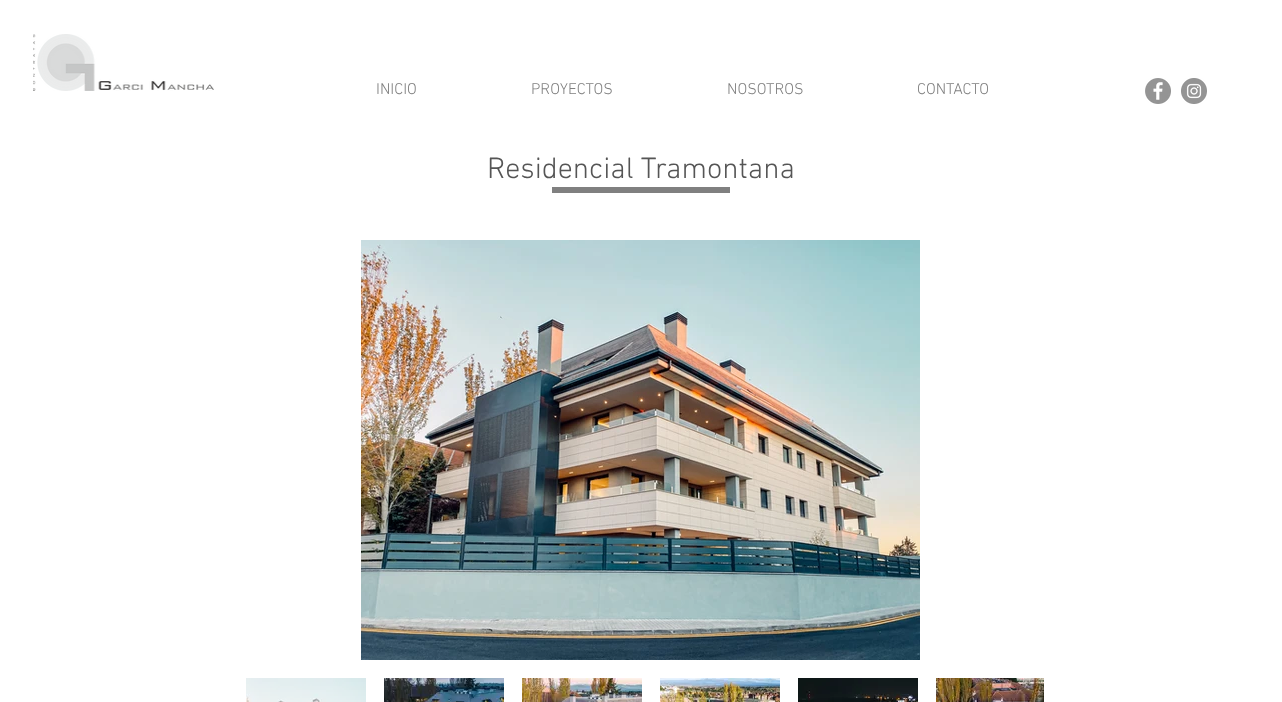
<svg xmlns="http://www.w3.org/2000/svg" width="1282" height="702" viewBox="0 0 1282 702">
  <style>
    .t1 { font: 300 16px 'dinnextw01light'; fill: #808080; }
    .t2 { font: 300 30px 'dinnextw01light'; fill: #555; }
  </style>
  <rect width="100%" height="100%" fill="#fff"/>
  <image x="33" y="34" width="181" height="57" href="images/1.png"/>
  <text x="376" y="94" class="t1">INICIO</text>
  <text x="531" y="94" class="t1">PROYECTOS</text>
  <text x="727" y="94" class="t1">NOSOTROS</text>
  <text x="917" y="94" class="t1">CONTACTO</text>
  <image x="1145" y="78" width="26" height="26" href="images/2.png"/>
  <image x="1181" y="78" width="26" height="26" href="images/3.png"/>
  <text x="487" y="178" class="t2">Residencial Tramontana</text>
  <rect x="552" y="187" width="178" height="6" fill="#808080"/>
  <image x="361" y="240" width="559" height="420" href="images/4.png"/>
  <image x="246" y="678" width="120" height="24" href="images/5.png"/>
  <image x="384" y="678" width="120" height="24" href="images/6.png"/>
  <image x="522" y="678" width="120" height="24" href="images/7.png"/>
  <image x="660" y="678" width="120" height="24" href="images/8.png"/>
  <image x="798" y="678" width="120" height="24" href="images/9.png"/>
  <image x="936" y="678" width="108" height="24" href="images/10.png"/>
</svg>
